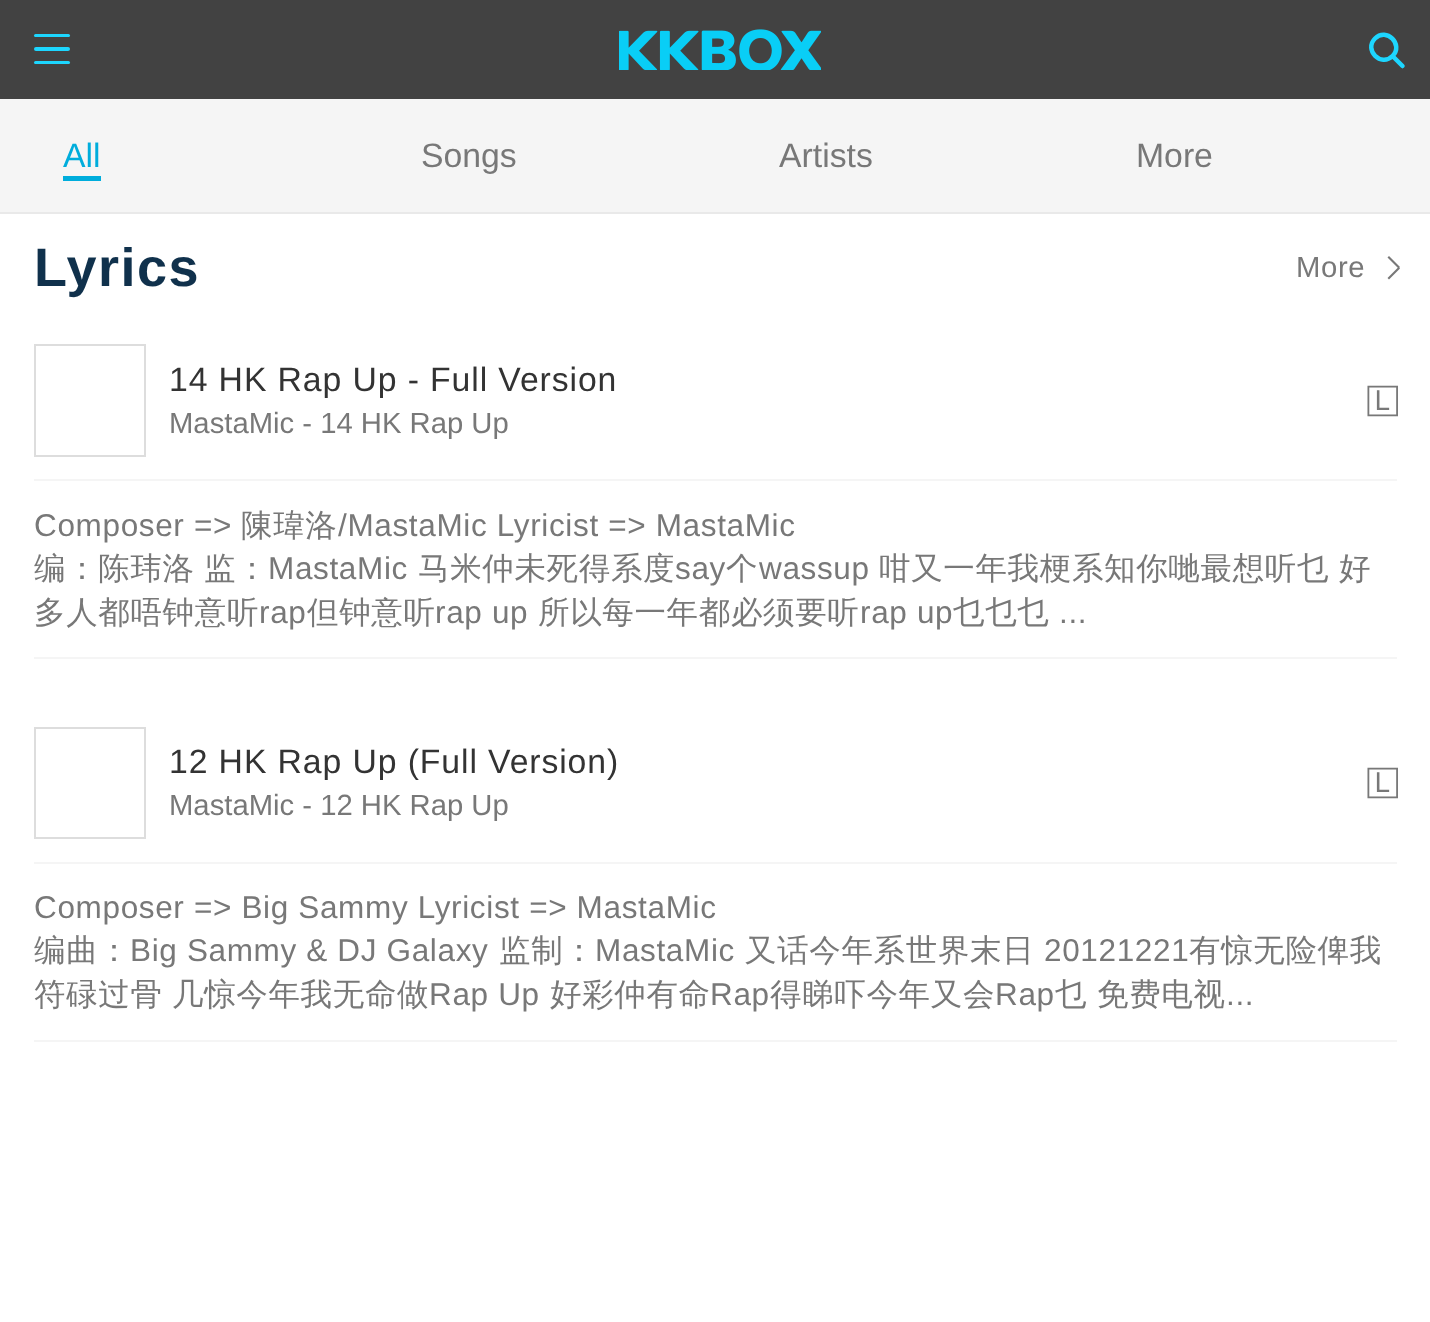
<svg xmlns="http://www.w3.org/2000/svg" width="1430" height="1322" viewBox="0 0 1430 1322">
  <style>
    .t1 { font: 33.75px Liberation Sans; fill: #00addc; }
    .t2 { font: 33.75px Liberation Sans; fill: #787878; }
    .t3 { font: bold 54px Liberation Sans; letter-spacing: 1.5px; fill: #10314c; }
    .t4 { font: 29.25px Liberation Sans; letter-spacing: 0.65px; fill: #787878; }
    .t5 { font: 33.75px Liberation Sans; letter-spacing: 0.9px; fill: #333; }
    .t6 { font: 27px FreeSans; fill: #787878; }
    .t7 { font: 29.25px Liberation Sans; fill: #787878; }
    .t8 { font: 31.5px Liberation Sans; letter-spacing: 0.65px; fill: #787878; }
    .t9 { font: 500 31.5px WenQuanYi Zen Hei; letter-spacing: 0.65px; fill: #787878; }
  </style>
  <rect width="100%" height="100%" fill="#fff"/>
  <rect x="0" y="0" width="1430" height="99" fill="#424242"/>
  <rect x="34" y="34" width="36" height="3" rx="1.5" fill="#1dd6ff"/>
  <rect x="34" y="47" width="36" height="4" rx="2" fill="#1dd6ff"/>
  <rect x="34" y="61" width="36" height="3" rx="1.5" fill="#1dd6ff"/>
  <image x="619" y="29" width="202" height="41" href="images/1.png"/>
  <path d="M1375 38.5C1386.5 27 1404 44.5 1392.5 56C1381 67.5 1363.5 50 1375 38.5ZM1393 56.5L1402.5 66" fill="none" stroke="#1dd6ff" stroke-width="4.5" stroke-linecap="round" stroke-linejoin="round"/>
  <rect x="0" y="99" width="1430" height="113" fill="#f5f5f5"/>
  <rect x="0" y="212" width="1430" height="2" fill="#e9e9e9"/>
  <text x="63" y="167" class="t1">All</text>
  <rect x="63" y="176" width="38" height="5" fill="#00addc"/>
  <text x="421" y="167" class="t2">Songs</text>
  <text x="779" y="167" class="t2">Artists</text>
  <text x="1136" y="167" class="t2">More</text>
  <text x="34" y="286" class="t3">Lyrics</text>
  <text x="1296" y="277" class="t4">More</text>
  <path d="M1398.5 268.5L1387.5 257.5L1389 256L1400 267Z" fill="#787878"/>
  <path d="M1389 279.5L1387.5 278L1398.5 267L1400 268.5Z" fill="#787878"/>
  <rect x="34" y="479" width="1363" height="2" fill="#f5f5f5"/>
  <rect x="35" y="345" width="110" height="111" fill="none" stroke="#ddd" stroke-width="2"/>
  <text x="169" y="391" class="t5">14 HK Rap Up - Full Version</text>
  <text x="1368" y="410" class="t6">🄻</text>
  <text x="169" y="433" class="t7">MastaMic - 14 HK Rap Up</text>
  <rect x="34" y="657" width="1363" height="2" fill="#f5f5f5"/>
  <text x="34" y="536" class="t8">Composer =&gt;</text>
  <text x="241" y="536" class="t9">陳瑋洛</text>
  <text x="338" y="536" class="t8">/MastaMic Lyricist =&gt; MastaMic</text>
  <text x="34" y="579" class="t9">编：陈玮洛</text>
  <text x="204" y="579" class="t9">监：</text>
  <text x="268" y="579" class="t8">MastaMic</text>
  <text x="418" y="579" class="t9">马米仲未死得系度</text>
  <text x="675" y="579" class="t8">say</text>
  <text x="726" y="579" class="t9">个</text>
  <text x="759" y="579" class="t8">wassup</text>
  <text x="879" y="579" class="t9">咁又一年我梗系知你哋最想听乜</text>
  <text x="1339" y="579" class="t9">好</text>
  <text x="34" y="623" class="t9">多人都唔钟意听</text>
  <text x="259" y="623" class="t8">rap</text>
  <text x="307" y="623" class="t9">但钟意听</text>
  <text x="435" y="623" class="t8">rap up</text>
  <text x="538" y="623" class="t9">所以每一年都必须要听</text>
  <text x="860" y="623" class="t8">rap up</text>
  <text x="953" y="623" class="t9">乜乜乜</text>
  <text x="1059" y="623" class="t8">...</text>
  <rect x="34" y="862" width="1363" height="2" fill="#f5f5f5"/>
  <rect x="35" y="728" width="110" height="110" fill="none" stroke="#ddd" stroke-width="2"/>
  <text x="169" y="773" class="t5">12 HK Rap Up (Full Version)</text>
  <text x="1368" y="792" class="t6">🄻</text>
  <text x="169" y="815" class="t7">MastaMic - 12 HK Rap Up</text>
  <rect x="34" y="1040" width="1363" height="2" fill="#f5f5f5"/>
  <text x="34" y="918" class="t8">Composer =&gt; Big Sammy Lyricist =&gt; MastaMic</text>
  <text x="34" y="961" class="t9">编曲：</text>
  <text x="130" y="961" class="t8">Big Sammy &amp; DJ Galaxy</text>
  <text x="499" y="961" class="t9">监制：</text>
  <text x="595" y="961" class="t8">MastaMic</text>
  <text x="745" y="961" class="t9">又话今年系世界末日</text>
  <text x="1044" y="961" class="t8">20121221</text>
  <text x="1189" y="961" class="t9">有惊无险俾我</text>
  <text x="34" y="1005" class="t9">符碌过骨</text>
  <text x="172" y="1005" class="t9">几惊今年我无命做</text>
  <text x="429" y="1005" class="t8">Rap Up</text>
  <text x="550" y="1005" class="t9">好彩仲有命</text>
  <text x="710" y="1005" class="t8">Rap</text>
  <text x="770" y="1005" class="t9">得睇吓今年又会</text>
  <text x="995" y="1005" class="t8">Rap</text>
  <text x="1055" y="1005" class="t9">乜</text>
  <text x="1097" y="1005" class="t9">免费电视</text>
  <text x="1226" y="1005" class="t8">...</text>
</svg>
